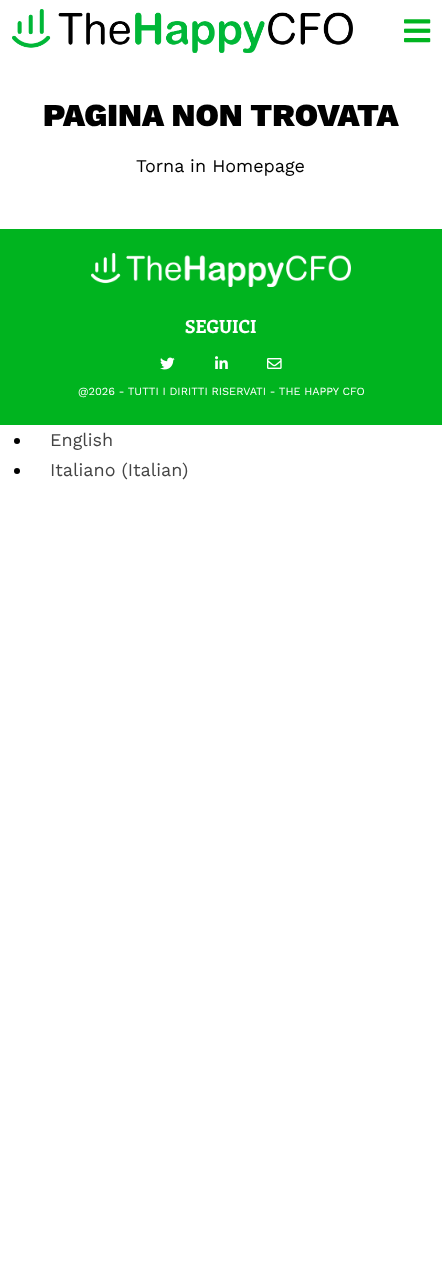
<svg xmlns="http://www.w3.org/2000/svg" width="442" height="1275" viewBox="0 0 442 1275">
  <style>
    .t1 { font: 900 32px Work Sans; fill: #000; }
    .t2 { font: 18px Work Sans; fill: #000; }
    .t3 { font: bold 18px Enriqueta; fill: #fff; }
    .t4 { font: 11px Work Sans; fill: #fff; }
    .t5 { font: 18px Work Sans; fill: #444; }
  </style>
  <rect width="100%" height="100%" fill="#fff"/>
  <image x="12" y="9" width="341" height="44" href="images/1.png"/>
  <image x="404" y="19" width="27" height="24" href="images/2.png"/>
  <text x="43" y="126" class="t1">PAGINA NON TROVATA</text>
  <text x="136" y="172" class="t2">Torna in Homepage</text>
  <rect x="0" y="229" width="442" height="196" fill="#00b41f"/>
  <image x="91" y="253" width="260" height="34" href="images/3.png"/>
  <text x="185" y="333" class="t3">SEGUICI</text>
  <image x="160" y="357" width="15" height="13" href="images/4.png"/>
  <image x="215" y="356" width="13" height="13" href="images/5.png"/>
  <image x="267" y="358" width="15" height="11" href="images/6.png"/>
  <text x="78" y="395" class="t4">@2026 - TUTTI I DIRITTI RISERVATI - THE HAPPY CFO</text>
  <circle cx="17" cy="441" r="3" fill="#000"/>
  <text x="50" y="446" class="t5">English</text>
  <circle cx="17" cy="471" r="3" fill="#000"/>
  <text x="50" y="476" class="t5">Italiano (Italian</text>
  <text x="182" y="476" class="t5">)</text>
</svg>
